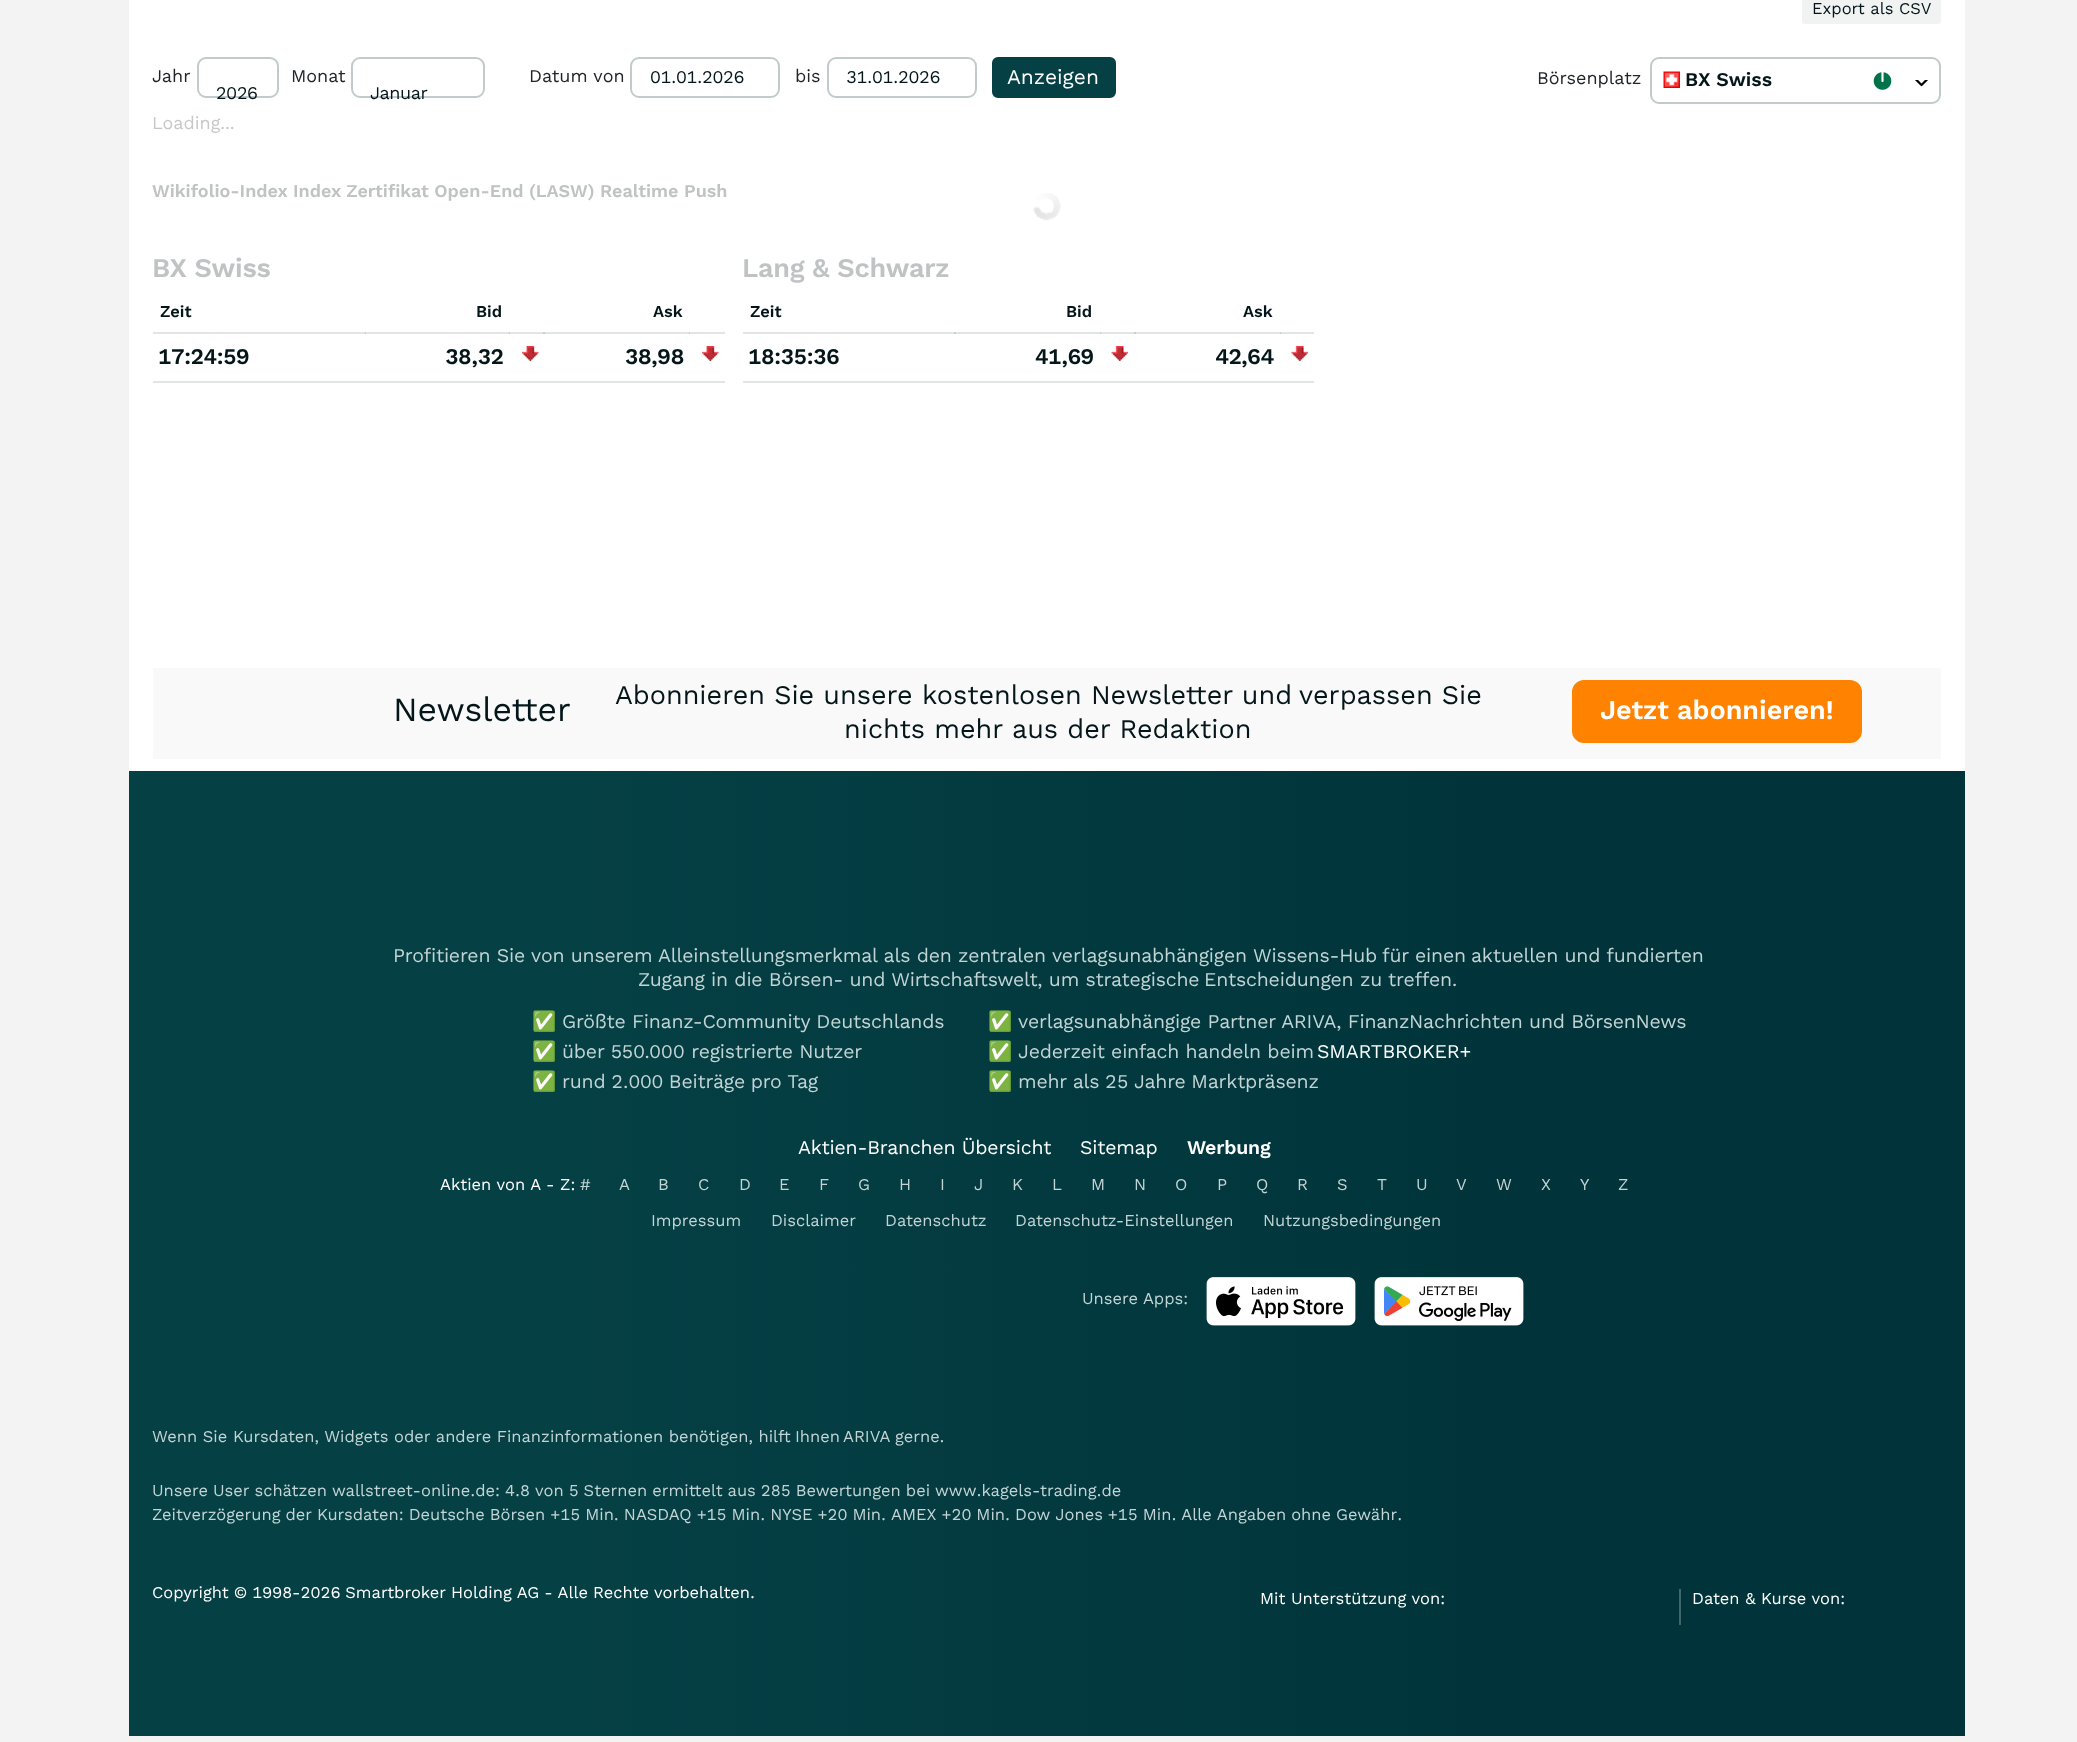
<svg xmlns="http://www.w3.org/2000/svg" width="2077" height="1742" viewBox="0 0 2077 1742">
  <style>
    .t1 { font: 16.5px Work Sans; fill: #041619; }
    .t2 { font: 18px Work Sans; fill: #212529; }
    .t3 { font: 18px Work Sans; letter-spacing: -0.4px; fill: #041619; }
    .t4 { font: 18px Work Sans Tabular; letter-spacing: -0.4px; fill: #041619; }
    .t5 { font: 21px Work Sans; fill: #fff; }
    .t6 { font: 600 19.5px Work Sans; fill: #041619; }
    .t7 { font: 18px Work Sans; fill: #c6c7c8; }
    .t8 { font: 600 18px Work Sans; fill: #bfc3c4; }
    .t9 { font: 600 27px Work Sans; letter-spacing: -0.25px; fill: #bfc3c4; }
    .t10 { font: 600 16.5px Work Sans; fill: #041619; }
    .t11 { font: 600 22.5px Work Sans Tabular; letter-spacing: -0.5px; fill: #041619; }
    .t12 { font: 600 22.5px Work Sans; letter-spacing: -0.5px; fill: #041619; }
    .t13 { font: 33.75px Work Sans; fill: #041619; }
    .t14 { font: 27px Work Sans; fill: #041619; }
    .t15 { font: 600 27px Work Sans; fill: #fff; }
    .t16 { font: 19.5px Work Sans; letter-spacing: -0.2px; fill: #c3d4d5; }
    .t17 { font: 19.5px Noto Color Emoji; letter-spacing: -0.2px; fill: #c3d4d5; }
    .t18 { font: 19.5px Work Sans Tabular; letter-spacing: -0.2px; fill: #c3d4d5; }
    .t19 { font: 19.5px Work Sans; letter-spacing: -0.2px; fill: #fff; }
    .t20 { font: 600 19.5px Work Sans; letter-spacing: -0.2px; fill: #fff; }
    .t21 { font: 16.5px Work Sans; fill: #fff; }
    .t22 { font: 16.5px Work Sans; fill: #c3d4d5; }
    .t23 { font: 16.5px Work Sans Tabular; fill: #c3d4d5; }
    .t24 { font: 16.5px Work Sans Tabular; fill: #fff; }
  </style>
  <defs>
    <linearGradient id="g1" gradientUnits="userSpaceOnUse" x1="129" y1="1087" x2="1965" y2="1087"><stop offset="0.25" stop-color="#054045"/><stop offset="0.75" stop-color="#00343a"/></linearGradient>
    <linearGradient id="g2" gradientUnits="userSpaceOnUse" x1="129" y1="1433" x2="1965" y2="1433"><stop offset="0.25" stop-color="#054045"/><stop offset="0.75" stop-color="#00343a"/></linearGradient>
    <linearGradient id="g3" gradientUnits="userSpaceOnUse" x1="129" y1="1550" x2="1965" y2="1550"><stop offset="0.25" stop-color="#054045"/><stop offset="0.75" stop-color="#00343a"/></linearGradient>
    <linearGradient id="g4" gradientUnits="userSpaceOnUse" x1="129" y1="1649" x2="1965" y2="1649"><stop offset="0.25" stop-color="#054045"/><stop offset="0.75" stop-color="#00343a"/></linearGradient>
    <linearGradient id="g5" gradientUnits="userSpaceOnUse" x1="129" y1="1698" x2="1965" y2="1698"><stop offset="0.25" stop-color="#054045"/><stop offset="0.75" stop-color="#00343a"/></linearGradient>
  </defs>
  <rect width="100%" height="100%" fill="#f3f3f3"/>
  <rect x="129" y="0" width="1836" height="771" fill="#fff"/>
  <rect x="743" y="332" width="571" height="2" fill="#e1e5e5"/>
  <rect x="954" y="332" width="2" height="2" fill="#c7cece"/>
  <rect x="1100" y="332" width="1" height="2" fill="#c7cece"/>
  <rect x="1134" y="332" width="2" height="2" fill="#c7cece"/>
  <rect x="153" y="332" width="572" height="2" fill="#e1e5e5"/>
  <rect x="365" y="332" width="1" height="2" fill="#c7cece"/>
  <rect x="509" y="332" width="1" height="2" fill="#c7cece"/>
  <rect x="543" y="332" width="2" height="2" fill="#c7cece"/>
  <rect x="1803" y="-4" width="137" height="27" rx="2" fill="#f1f2f2" stroke="#f1f2f2" stroke-width="2"/>
  <text x="1812" y="14" class="t1">Export als CSV</text>
  <text x="152" y="82" class="t2">Jahr</text>
  <rect x="198" y="58" width="80" height="39" rx="8" fill="none" stroke="#c2cbcc" stroke-width="2"/>
  <text x="216" y="99" class="t3">2026</text>
  <text x="291" y="82" class="t2">Monat</text>
  <rect x="352" y="58" width="132" height="39" rx="8" fill="none" stroke="#c2cbcc" stroke-width="2"/>
  <text x="370" y="99" class="t3">Januar</text>
  <text x="529" y="82" class="t2">Datum von</text>
  <rect x="631" y="58" width="148" height="39" rx="8" fill="none" stroke="#c2cbcc" stroke-width="2"/>
  <text x="650" y="83" class="t4">01.01.2026</text>
  <text x="795" y="82" class="t2">bis</text>
  <rect x="828" y="58" width="148" height="39" rx="8" fill="none" stroke="#c2cbcc" stroke-width="2"/>
  <text x="846" y="83" class="t4">31.01.2026</text>
  <rect x="993" y="58" width="122" height="39" rx="5" fill="#054045" stroke="#054045" stroke-width="2"/>
  <text x="1007" y="84" class="t5">Anzeigen</text>
  <text x="1537" y="84" class="t2">Börsenplatz</text>
  <rect x="1651" y="58" width="289" height="45" rx="8" fill="none" stroke="#c2cbcc" stroke-width="2"/>
  <image x="1663" y="71" width="17" height="17" href="images/1.png"/>
  <text x="1685" y="86" class="t6">BX Swiss</text>
  <image x="1873" y="72" width="19" height="18" href="images/2.png"/>
  <image x="1915" y="80" width="13" height="7" href="images/3.png"/>
  <text x="152" y="129" class="t7">Loading...</text>
  <image x="1033" y="193" width="28" height="28" href="images/4.png"/>
  <text x="152" y="197" class="t8">Wikifolio-Index Index Zertifikat Open-End (LASW) Realtime Push</text>
  <text x="152" y="277" class="t9">BX Swiss</text>
  <text x="160" y="317" class="t10">Zeit</text>
  <text x="476" y="317" class="t10">Bid</text>
  <text x="653" y="317" class="t10">Ask</text>
  <rect x="689" y="332" width="1" height="2" fill="#c7cece"/>
  <rect x="153" y="381" width="572" height="2" fill="#e1e5e5"/>
  <text x="158" y="364" class="t11">17:24:59</text>
  <text x="445" y="364" class="t11">38,32</text>
  <image x="522" y="346" width="17" height="15" href="images/5.png"/>
  <text x="625" y="364" class="t12">38,98</text>
  <image x="702" y="346" width="17" height="15" href="images/5.png"/>
  <text x="742" y="277" class="t9">Lang &amp; Schwarz</text>
  <text x="750" y="317" class="t10">Zeit</text>
  <text x="1066" y="317" class="t10">Bid</text>
  <text x="1243" y="317" class="t10">Ask</text>
  <rect x="1280" y="332" width="1" height="2" fill="#c7cece"/>
  <rect x="743" y="381" width="571" height="2" fill="#e1e5e5"/>
  <text x="748" y="364" class="t11">18:35:36</text>
  <text x="1035" y="364" class="t11">41,69</text>
  <image x="1111" y="346" width="17" height="15" href="images/6.png"/>
  <text x="1215" y="364" class="t12">42,64</text>
  <image x="1291" y="346" width="17" height="15" href="images/7.png"/>
  <rect x="153" y="668" width="1788" height="91" fill="#f9f9f9"/>
  <text x="393" y="721" class="t13">Newsletter</text>
  <text x="615" y="704" class="t14">Abonnieren Sie unsere kostenlosen Newsletter und</text>
  <text x="1299" y="704" class="t14">verpassen Sie</text>
  <text x="844" y="738" class="t14">nichts mehr aus der Redaktion</text>
  <rect x="1573" y="681" width="288" height="61" rx="11" fill="#ff8300" stroke="#ff8300" stroke-width="2"/>
  <text x="1600" y="719" class="t15">Jetzt abonnieren!</text>
  <rect x="129" y="771" width="1836" height="632" fill="url(#g1)"/>
  <text x="393" y="962" class="t16">Profitieren Sie von unserem Alleinstellungsmerkmal als den zentralen verlagsunabhängigen Wissens-Hub</text>
  <text x="1382" y="962" class="t16">für einen</text>
  <text x="1471" y="962" class="t16">aktuellen und fundierten</text>
  <text x="638" y="986" class="t16">Zugang in die Börsen- und Wirtschaftswelt, um strategische</text>
  <text x="1204" y="986" class="t16">Entscheidungen zu treffen.</text>
  <text x="532" y="1028" class="t17">✅</text>
  <text x="562" y="1028" class="t16">Größte Finanz-Community Deutschlands</text>
  <text x="532" y="1058" class="t17">✅</text>
  <text x="562" y="1058" class="t16">über 550.000 registrierte Nutzer</text>
  <text x="532" y="1088" class="t17">✅</text>
  <text x="562" y="1088" class="t18">rund 2.000 Beiträge pro Tag</text>
  <text x="988" y="1028" class="t17">✅</text>
  <text x="1018" y="1028" class="t16">verlagsunabhängige Partner ARIVA, FinanzNachrichten und BörsenNews</text>
  <text x="988" y="1058" class="t17">✅</text>
  <text x="1018" y="1058" class="t16">Jederzeit einfach handeln beim</text>
  <text x="1317" y="1058" class="t19">SMARTBROKER+</text>
  <text x="988" y="1088" class="t17">✅</text>
  <text x="1018" y="1088" class="t18">mehr als 25 Jahre Marktpräsenz</text>
  <text x="798" y="1154" class="t19">Aktien-Branchen Übersicht</text>
  <text x="1080" y="1154" class="t19">Sitemap</text>
  <text x="1187" y="1154" class="t20">Werbung</text>
  <text x="440" y="1190" class="t21">Aktien von A - Z:</text>
  <text x="580" y="1190" class="t22">#</text>
  <text x="619" y="1190" class="t22">A</text>
  <text x="658" y="1190" class="t22">B</text>
  <text x="698" y="1190" class="t22">C</text>
  <text x="739" y="1190" class="t22">D</text>
  <text x="779" y="1190" class="t22">E</text>
  <text x="819" y="1190" class="t22">F</text>
  <text x="858" y="1190" class="t22">G</text>
  <text x="899" y="1190" class="t22">H</text>
  <text x="940" y="1190" class="t22">I</text>
  <text x="974" y="1190" class="t22">J</text>
  <text x="1012" y="1190" class="t22">K</text>
  <text x="1052" y="1190" class="t22">L</text>
  <text x="1091" y="1190" class="t22">M</text>
  <text x="1134" y="1190" class="t22">N</text>
  <text x="1175" y="1190" class="t22">O</text>
  <text x="1217" y="1190" class="t22">P</text>
  <text x="1256" y="1190" class="t22">Q</text>
  <text x="1297" y="1190" class="t22">R</text>
  <text x="1337" y="1190" class="t22">S</text>
  <text x="1377" y="1190" class="t22">T</text>
  <text x="1416" y="1190" class="t22">U</text>
  <text x="1456" y="1190" class="t22">V</text>
  <text x="1496" y="1190" class="t22">W</text>
  <text x="1541" y="1190" class="t22">X</text>
  <text x="1580" y="1190" class="t22">Y</text>
  <text x="1618" y="1190" class="t22">Z</text>
  <text x="651" y="1226" class="t22">Impressum</text>
  <text x="771" y="1226" class="t22">Disclaimer</text>
  <text x="885" y="1226" class="t22">Datenschutz</text>
  <text x="1015" y="1226" class="t22">Datenschutz-Einstellungen</text>
  <text x="1263" y="1226" class="t22">Nutzungsbedingungen</text>
  <text x="1082" y="1304" class="t22">Unsere Apps:</text>
  <image x="1206" y="1277" width="150" height="49" href="images/8.png"/>
  <image x="1374" y="1277" width="150" height="49" href="images/9.png"/>
  <rect x="129" y="1403" width="1836" height="60" fill="url(#g2)"/>
  <text x="152" y="1442" class="t22">Wenn Sie Kursdaten, Widgets oder andere Finanzinformationen benötigen, hilft</text>
  <text x="795" y="1442" class="t22">Ihnen</text>
  <text x="843" y="1442" class="t22">ARIVA</text>
  <text x="895" y="1442" class="t22">gerne.</text>
  <rect x="129" y="1463" width="1836" height="174" fill="url(#g3)"/>
  <text x="152" y="1496" class="t23">Unsere User schätzen wallstreet-online.de: 4.8 von 5 Sternen ermittelt aus 285 Bewertungen bei www.kagels-trading.de</text>
  <text x="152" y="1520" class="t23">Zeitverzögerung der Kursdaten: Deutsche Börsen +15 Min. NASDAQ +15 Min. NYSE +20 Min. AMEX +20 Min. Dow Jones +15 Min. Alle Angaben ohne Gewähr.</text>
  <text x="152" y="1598" class="t24">Copyright © 1998-2026 Smartbroker Holding AG - Alle Rechte vorbehalten.</text>
  <text x="1260" y="1604" class="t21">Mit Unterstützung von:</text>
  <rect x="1679" y="1589" width="2" height="36" fill="#40676b"/>
  <text x="1692" y="1604" class="t21">Daten &amp; Kurse von:</text>
  <rect x="129" y="1637" width="1836" height="24" fill="url(#g4)"/>
  <rect x="129" y="1661" width="1836" height="75" fill="url(#g5)"/>
</svg>
